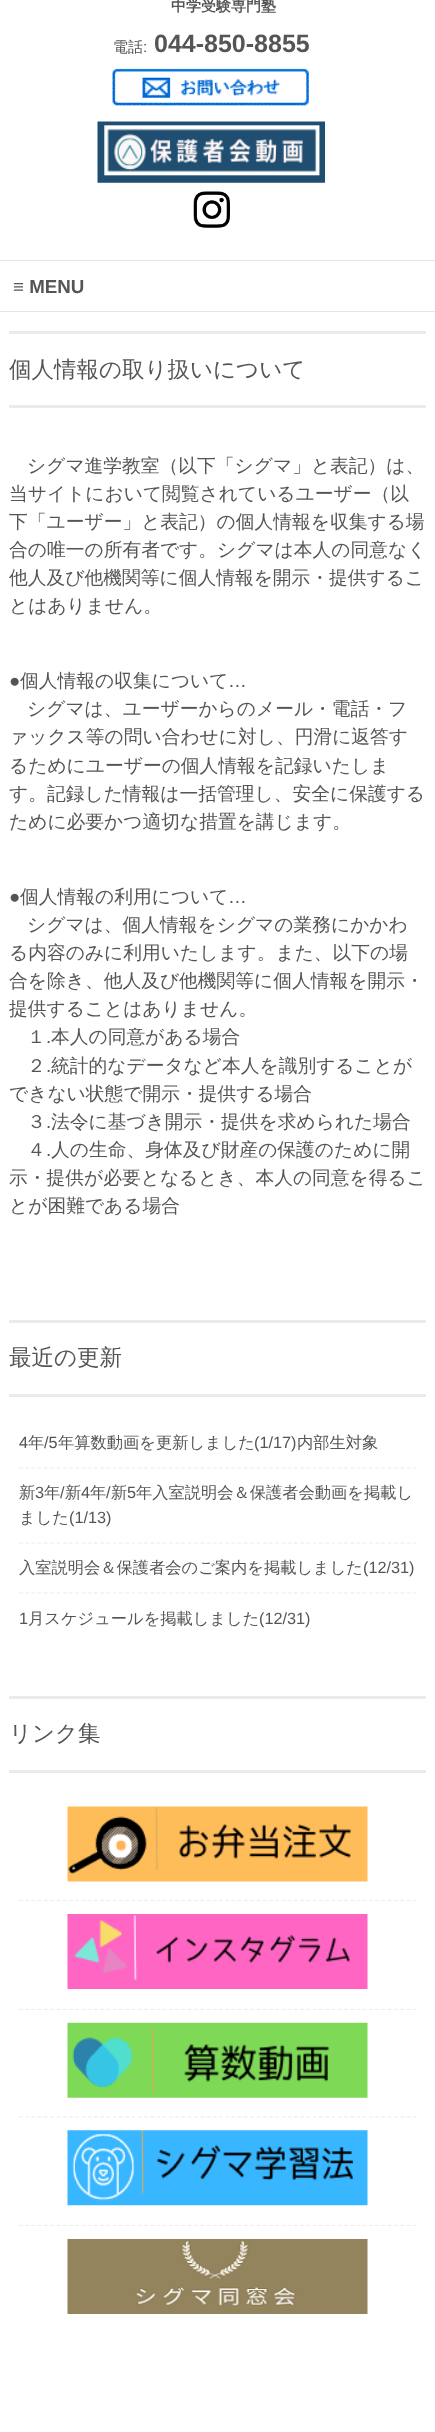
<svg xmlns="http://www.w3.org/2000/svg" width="435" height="2432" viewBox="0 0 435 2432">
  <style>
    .t1 { font: bold 15px WenQuanYi Zen Hei; fill: #555; }
    .t2 { font: 500 15px WenQuanYi Zen Hei; fill: #555; }
    .t3 { font: 15px Liberation Sans; fill: #555; }
    .t4 { font: bold 25px Liberation Sans; fill: #555; }
    .t5 { font: bold 18.75px Liberation Sans; fill: #555; }
    .t6 { font: 500 22.5px WenQuanYi Zen Hei; fill: #555; }
    .t7 { font: 500 18.75px WenQuanYi Zen Hei; fill: #555; }
    .t8 { font: 18.75px Liberation Sans; fill: #555; }
    .t9 { font: 16.25px Liberation Sans; fill: #555; }
    .t10 { font: 500 16.25px WenQuanYi Zen Hei; fill: #555; }
  </style>
  <rect width="100%" height="100%" fill="#fff"/>
  <text x="171" y="11" class="t1">中学受験専門塾</text>
  <text x="113" y="52" class="t2">電話</text>
  <text x="143" y="52" class="t3">:</text>
  <text x="154" y="52" class="t4">044-850-8855</text>
  <image x="112" y="68" width="197" height="38" href="images/1.png"/>
  <image x="97" y="121" width="228" height="62" href="images/2.png"/>
  <image x="193" y="191" width="37" height="37" href="images/3.png"/>
  <rect x="0" y="260" width="435" height="1" fill="#e4e4e4"/>
  <rect x="0" y="311" width="435" height="1" fill="#e4e4e4"/>
  <text x="13" y="293" class="t5">≡ MENU</text>
  <rect x="9" y="331" width="417" height="3" fill="#ebebeb"/>
  <rect x="9" y="405" width="417" height="3" fill="#ebebeb"/>
  <text x="9" y="377" class="t6">個人情報の取り扱いについて</text>
  <text x="27" y="472" class="t7">シグマ進学教室（以下「シグマ」と表記）は、</text>
  <text x="9" y="500" class="t7">当サイトにおいて閲覧されているユーザー（以</text>
  <text x="9" y="528" class="t7">下「ユーザー」と表記）の個人情報を収集する場</text>
  <text x="9" y="556" class="t7">合の唯一の所有者です。シグマは本人の同意なく</text>
  <text x="9" y="584" class="t7">他人及び他機関等に個人情報を開示・提供するこ</text>
  <text x="9" y="612" class="t7">とはありません。</text>
  <text x="9" y="687" class="t8">●</text>
  <text x="20" y="687" class="t7">個人情報の収集について</text>
  <text x="228" y="687" class="t8">…</text>
  <text x="27" y="715" class="t7">シグマは、ユーザーからのメール・電話・フ</text>
  <text x="9" y="743" class="t7">ァックス等の問い合わせに対し、円滑に返答す</text>
  <text x="9" y="772" class="t7">るためにユーザーの個人情報を記録いたしま</text>
  <text x="9" y="800" class="t7">す。記録した情報は一括管理し、安全に保護する</text>
  <text x="9" y="828" class="t7">ために必要かつ適切な措置を講じます。</text>
  <text x="9" y="903" class="t8">●</text>
  <text x="20" y="903" class="t7">個人情報の利用について</text>
  <text x="228" y="903" class="t8">…</text>
  <text x="27" y="931" class="t7">シグマは、個人情報をシグマの業務にかかわ</text>
  <text x="9" y="959" class="t7">る内容のみに利用いたします。また、以下の場</text>
  <text x="9" y="987" class="t7">合を除き、他人及び他機関等に個人情報を開示・</text>
  <text x="9" y="1015" class="t7">提供することはありません。</text>
  <text x="27" y="1043" class="t7">１</text>
  <text x="46" y="1043" class="t8">.</text>
  <text x="51" y="1043" class="t7">本人の同意がある場合</text>
  <text x="27" y="1072" class="t7">２</text>
  <text x="46" y="1072" class="t8">.</text>
  <text x="51" y="1072" class="t7">統計的なデータなど本人を識別することが</text>
  <text x="9" y="1100" class="t7">できない状態で開示・提供する場合</text>
  <text x="27" y="1128" class="t7">３</text>
  <text x="46" y="1128" class="t8">.</text>
  <text x="51" y="1128" class="t7">法令に基づき開示・提供を求められた場合</text>
  <text x="27" y="1156" class="t7">４</text>
  <text x="46" y="1156" class="t8">.</text>
  <text x="51" y="1156" class="t7">人の生命、身体及び財産の保護のために開</text>
  <text x="9" y="1184" class="t7">示・提供が必要となるとき、本人の同意を得るこ</text>
  <text x="9" y="1212" class="t7">とが困難である場合</text>
  <rect x="9" y="1320" width="417" height="3" fill="#ebebeb"/>
  <rect x="9" y="1394" width="417" height="3" fill="#ebebeb"/>
  <text x="9" y="1365" class="t6">最近の更新</text>
  <path d="M19 1468H416" fill="none" stroke="#ebebeb" stroke-width="1.2" stroke-dasharray="3.75 2.5"/>
  <text x="19" y="1448" class="t9">4</text>
  <text x="28" y="1448" class="t10">年</text>
  <text x="44" y="1448" class="t9">/5</text>
  <text x="58" y="1448" class="t10">年算数動画を更新しました</text>
  <text x="254" y="1448" class="t9">(1/17)</text>
  <text x="297" y="1448" class="t10">内部生対象</text>
  <path d="M19 1543H416" fill="none" stroke="#ebebeb" stroke-width="1.2" stroke-dasharray="3.75 2.5"/>
  <text x="19" y="1498" class="t10">新</text>
  <text x="35" y="1498" class="t9">3</text>
  <text x="44" y="1498" class="t10">年</text>
  <text x="60" y="1498" class="t9">/</text>
  <text x="65" y="1498" class="t10">新</text>
  <text x="81" y="1498" class="t9">4</text>
  <text x="90" y="1498" class="t10">年</text>
  <text x="106" y="1498" class="t9">/</text>
  <text x="111" y="1498" class="t10">新</text>
  <text x="127" y="1498" class="t9">5</text>
  <text x="136" y="1498" class="t10">年入室説明会＆保護者会動画を掲載し</text>
  <text x="19" y="1523" class="t10">ました</text>
  <text x="69" y="1523" class="t9">(1/13)</text>
  <path d="M19 1593H416" fill="none" stroke="#ebebeb" stroke-width="1.2" stroke-dasharray="3.75 2.5"/>
  <text x="19" y="1573" class="t10">入室説明会＆保護者会のご案内を掲載しました</text>
  <text x="363" y="1573" class="t9">(12/31)</text>
  <text x="19" y="1624" class="t9">1</text>
  <text x="28" y="1624" class="t10">月スケジュールを掲載しました</text>
  <text x="259" y="1624" class="t9">(12/31)</text>
  <rect x="9" y="1696" width="417" height="3" fill="#ebebeb"/>
  <rect x="9" y="1770" width="417" height="3" fill="#ebebeb"/>
  <text x="9" y="1741" class="t6">リンク集</text>
  <path d="M19 1900.5H416" fill="none" stroke="#ebebeb" stroke-width="1.2" stroke-dasharray="3.75 2.5"/>
  <image x="67" y="1806" width="301" height="76" href="images/4.png"/>
  <path d="M19 2009.5H416" fill="none" stroke="#ebebeb" stroke-width="1.2" stroke-dasharray="3.75 2.5"/>
  <image x="67" y="1914" width="301" height="75" href="images/5.png"/>
  <path d="M19 2117H416" fill="none" stroke="#ebebeb" stroke-width="1.2" stroke-dasharray="3.75 2.5"/>
  <image x="67" y="2022" width="301" height="76" href="images/6.png"/>
  <path d="M19 2225.5H416" fill="none" stroke="#ebebeb" stroke-width="1.2" stroke-dasharray="3.75 2.5"/>
  <image x="67" y="2130" width="301" height="76" href="images/7.png"/>
  <image x="67" y="2239" width="301" height="75" href="images/8.png"/>
</svg>
